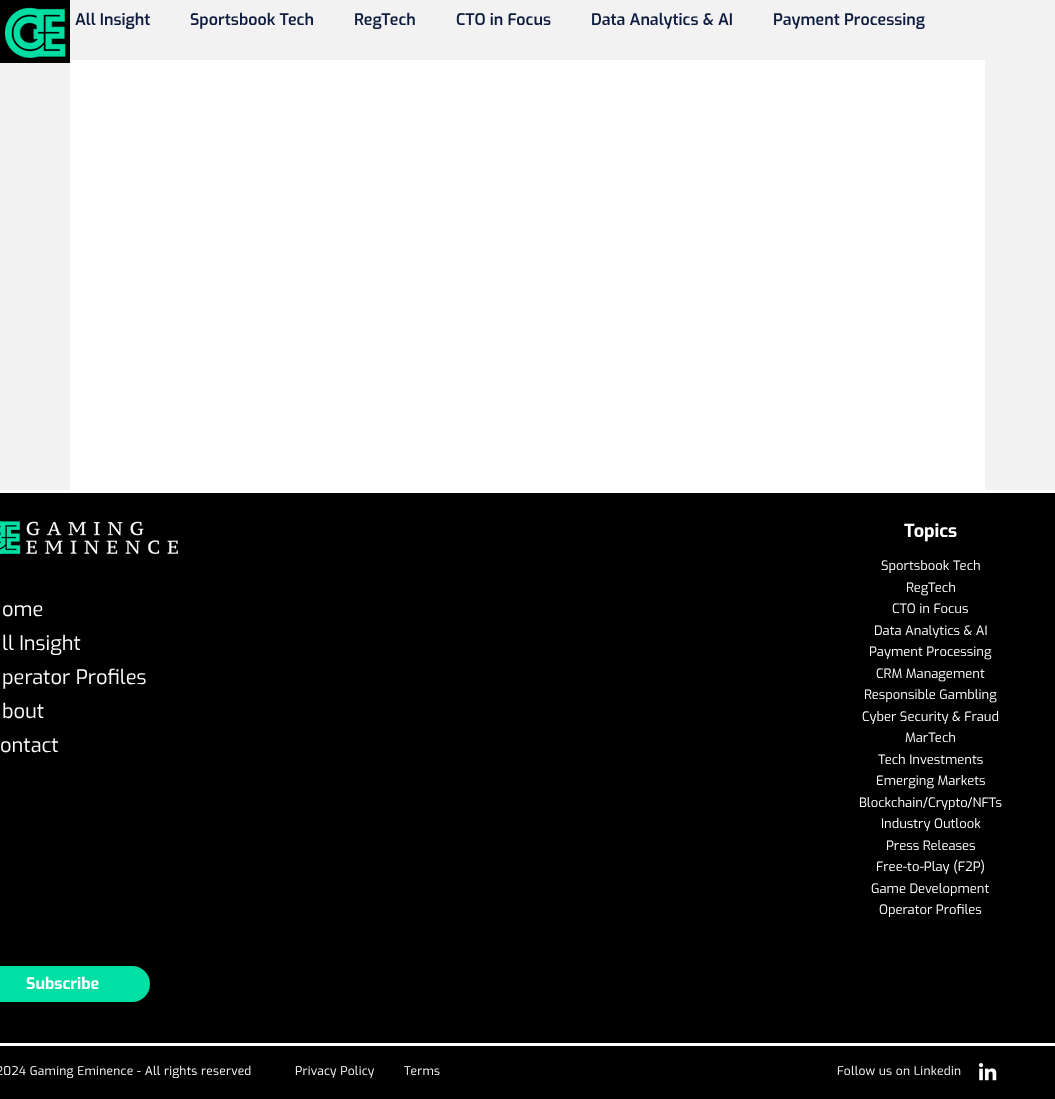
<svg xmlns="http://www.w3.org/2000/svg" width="1055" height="1099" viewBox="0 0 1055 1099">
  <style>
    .t1 { font: 600 16px Exo; fill: #0e1c40; }
    .t2 { font: bold 18px Exo; fill: #fff; }
    .t3 { font: 20px Exo; fill: #fff; }
    .t4 { font: 13px 'Exo 2'; fill: #fff; }
    .t5 { font: bold 16px Exo; fill: #fff; }
    .t6 { font: 12px 'Exo 2'; letter-spacing: 0.25px; fill: #fff; }
  </style>
  <rect width="100%" height="100%" fill="#f2f2f2"/>
  <rect x="0" y="0" width="70" height="63" fill="#000"/>
  <image x="5" y="7" width="61" height="51" href="images/1.png"/>
  <rect x="70" y="60" width="915" height="430" fill="#fff"/>
  <text x="75" y="25" class="t1">All Insight</text>
  <text x="190" y="25" class="t1">Sportsbook Tech</text>
  <text x="354" y="25" class="t1">RegTech</text>
  <text x="456" y="25" class="t1">CTO in Focus</text>
  <text x="591" y="25" class="t1">Data Analytics &amp; AI</text>
  <text x="773" y="25" class="t1">Payment Processing</text>
  <rect x="0" y="493" width="1055" height="606" fill="#000"/>
  <rect x="0" y="490" width="1055" height="3" fill="#fff"/>
  <image x="0" y="521" width="179" height="34" href="images/2.png"/>
  <text x="904" y="537" class="t2">Topics</text>
  <text x="2" y="616" class="t3">ome</text>
  <text x="2" y="650" class="t3">ll Insight</text>
  <text x="2" y="684" class="t3">perator Profiles</text>
  <text x="2" y="718" class="t3">bout</text>
  <text x="0" y="752" class="t3">ontact</text>
  <text x="881" y="570" class="t4">Sportsbook Tech</text>
  <text x="906" y="592" class="t4">RegTech</text>
  <text x="892" y="613" class="t4">CTO in Focus</text>
  <text x="874" y="635" class="t4">Data Analytics &amp; AI</text>
  <text x="869" y="656" class="t4">Payment Processing</text>
  <text x="876" y="678" class="t4">CRM Management</text>
  <text x="864" y="699" class="t4">Responsible Gambling</text>
  <text x="862" y="721" class="t4">Cyber Security &amp; Fraud</text>
  <text x="905" y="742" class="t4">MarTech</text>
  <text x="878" y="764" class="t4">Tech Investments</text>
  <text x="876" y="785" class="t4">Emerging Markets</text>
  <text x="859" y="807" class="t4">Blockchain/Crypto/NFTs</text>
  <text x="881" y="828" class="t4">Industry Outlook</text>
  <text x="886" y="850" class="t4">Press Releases</text>
  <text x="876" y="871" class="t4">Free-to-Play (F2P)</text>
  <text x="871" y="893" class="t4">Game Development</text>
  <text x="879" y="914" class="t4">Operator Profiles</text>
  <rect x="-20" y="965" width="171" height="38" rx="19" fill="#00e0a5" stroke="#000" stroke-width="2"/>
  <text x="26" y="989" class="t5">Subscribe</text>
  <rect x="0" y="1043" width="1055" height="3" fill="#fff"/>
  <text x="-4" y="1075" class="t6">2024 Gaming Eminence - All rights reserved</text>
  <text x="295" y="1075" class="t6">Privacy Policy</text>
  <text x="404" y="1075" class="t6">Terms</text>
  <text x="837" y="1075" class="t6">Follow us on Linkedin</text>
  <image x="978" y="1062" width="19" height="19" href="images/3.png"/>
</svg>
